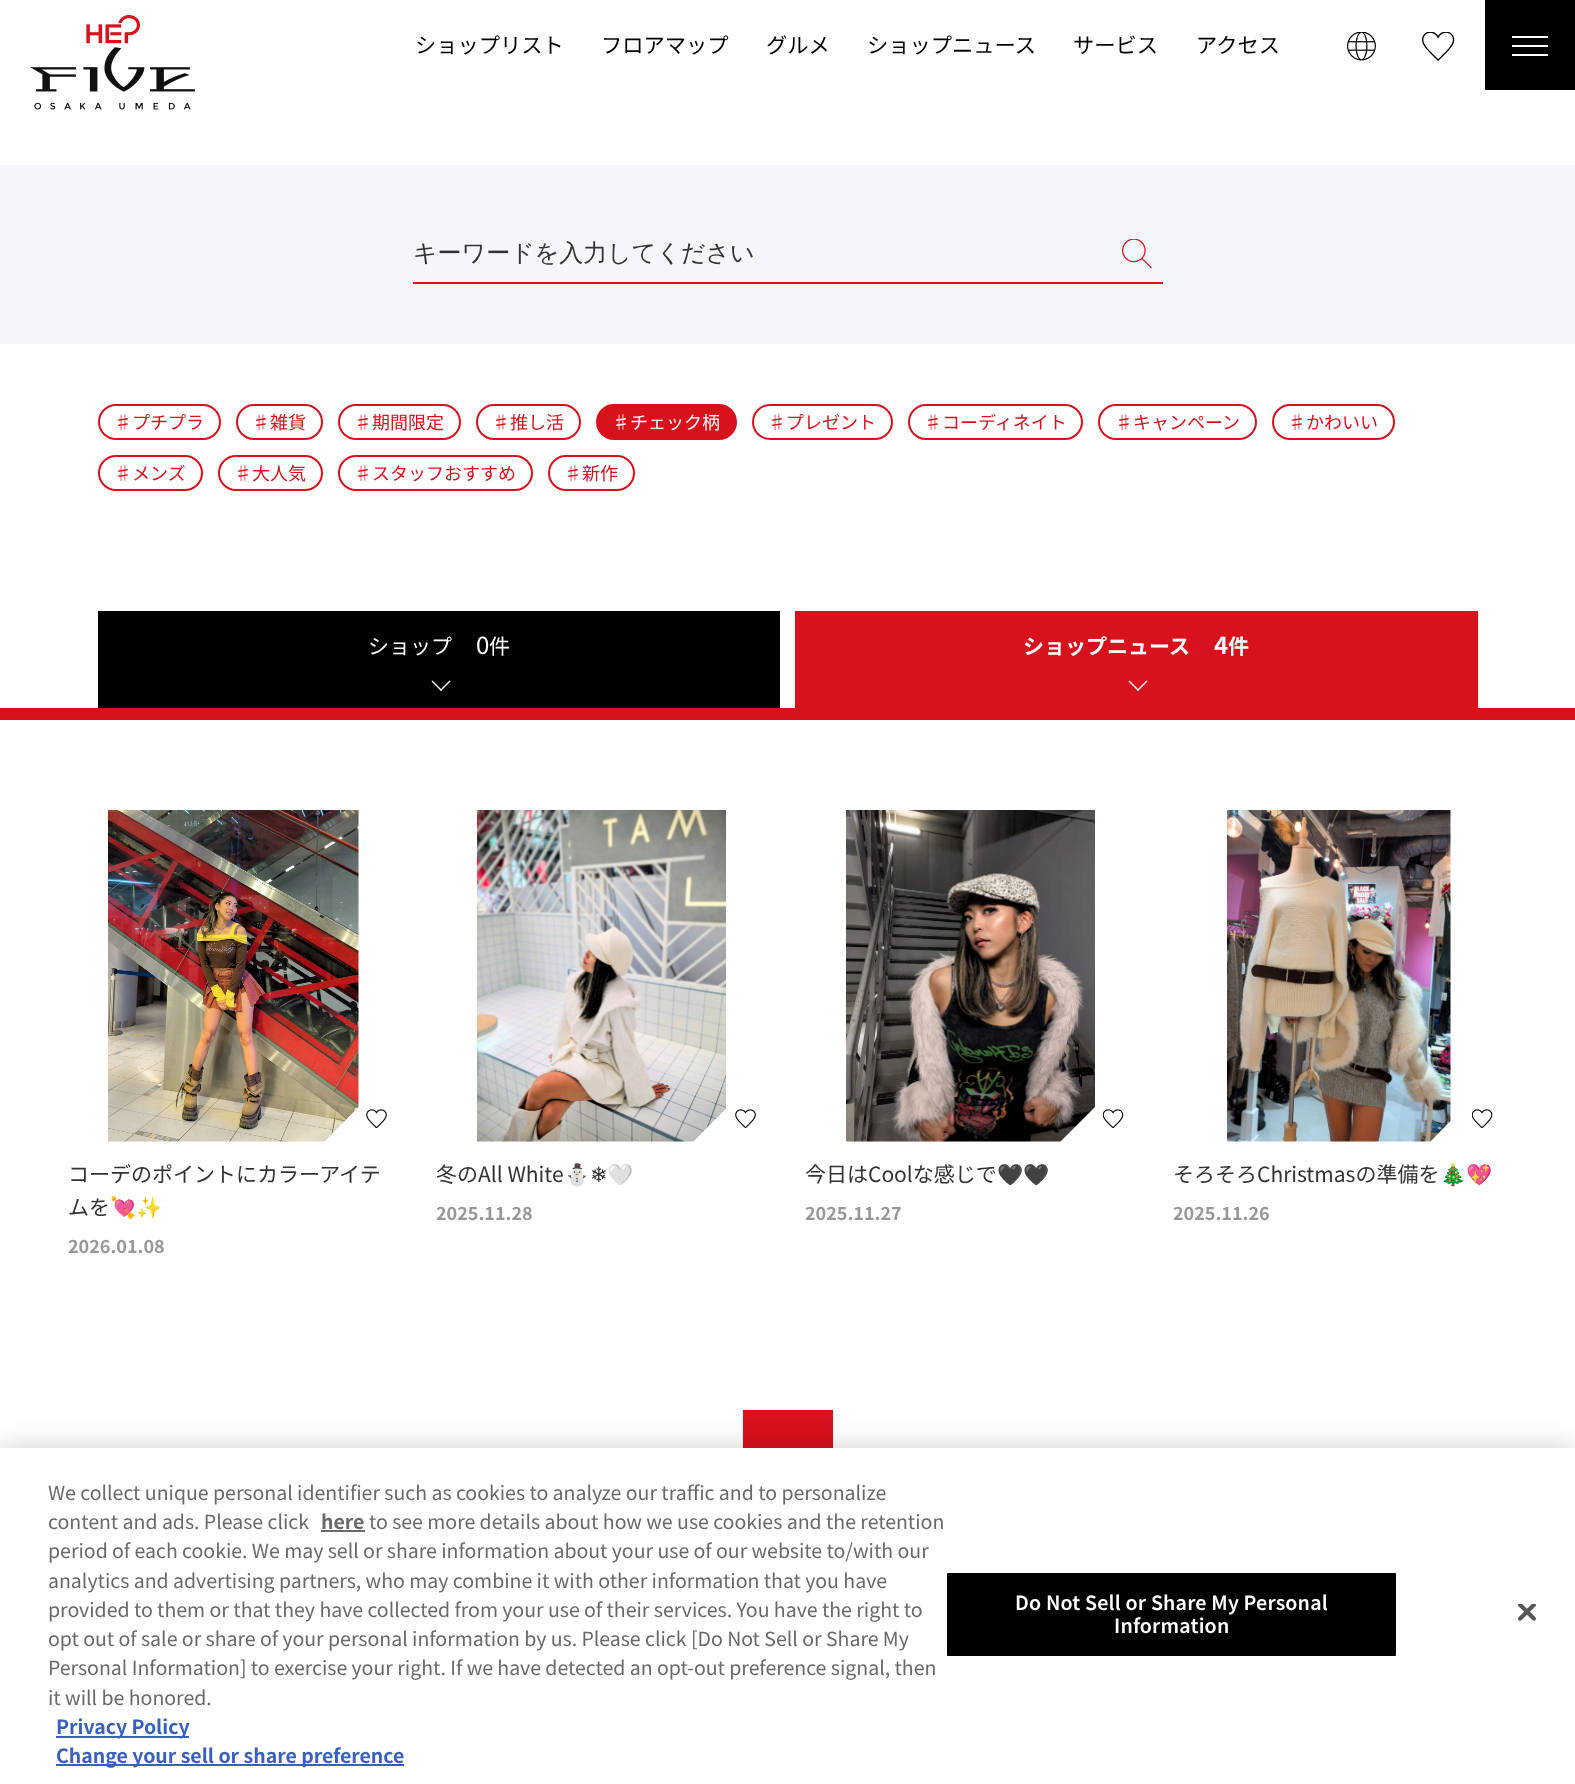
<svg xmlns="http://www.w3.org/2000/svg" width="1575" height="1784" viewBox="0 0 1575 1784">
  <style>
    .t1 { font: 21.25px Noto Sans JP; fill: #000; }
    .t2 { font: 500 24px WenQuanYi Zen Hei; fill: #333; }
    .t3 { font: 18px Noto Sans JP; fill: #d8121c; }
    .t4 { font: 18px Noto Sans JP; fill: #fff; }
    .t5 { font: 21px Noto Sans JP; fill: #fff; }
    .t6 { font: 24px Noto Sans JP; fill: #fff; }
    .t7 { font: bold 21px Noto Sans JP; fill: #fff; }
    .t8 { font: bold 24px Noto Sans JP; fill: #fff; }
    .t9 { font: 21px Noto Sans JP; fill: #333; }
    .t10 { font: 21px Noto Color Emoji; fill: #333; }
    .t11 { font: bold 18px Noto Sans JP; fill: #989898; }
    .t12 { font: 21px 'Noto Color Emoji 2'; fill: #333; }
    .t13 { font: 21px DejaVu Sans; fill: #333; }
    .t14 { font: 19.5px Noto Sans JP; fill: #696969; }
    .t15 { font: bold 19.5px Noto Sans JP; fill: #696969; }
    .t16 { font: bold 19.5px Noto Sans JP; fill: #3860be; }
    .t17 { font: 600 19.5px Noto Sans JP; letter-spacing: 0.2px; fill: #fff; }
  </style>
  <rect width="100%" height="100%" fill="#fff"/>
  <image x="30" y="15" width="165" height="95" href="images/1.png"/>
  <text x="415" y="53" class="t1">ショップリスト</text>
  <text x="601" y="53" class="t1">フロアマップ</text>
  <text x="766" y="53" class="t1">グルメ</text>
  <text x="867" y="53" class="t1">ショップニュース</text>
  <text x="1073" y="53" class="t1">サービス</text>
  <text x="1196" y="53" class="t1">アクセス</text>
  <image x="1347" y="32" width="29" height="29" href="images/2.png"/>
  <image x="1422" y="32" width="33" height="29" href="images/3.png"/>
  <rect x="1485" y="0" width="90" height="90" fill="#000"/>
  <rect x="1512" y="45" width="36" height="2" fill="#fff"/>
  <rect x="1512" y="36" width="36" height="2" fill="#fff"/>
  <rect x="1512" y="54" width="36" height="2" fill="#fff"/>
  <rect x="0" y="165" width="1575" height="179" fill="#f5f6fc"/>
  <rect x="413" y="282" width="750" height="2" fill="#d8121c"/>
  <text x="413" y="261" class="t2">キーワードを入力してください</text>
  <image x="1122" y="239" width="30" height="30" href="images/4.png"/>
  <rect x="99" y="405" width="121" height="34" rx="17" fill="none" stroke="#d8121c" stroke-width="2"/>
  <text x="114" y="429" class="t3">♯プチプラ</text>
  <rect x="237" y="405" width="85" height="34" rx="17" fill="none" stroke="#d8121c" stroke-width="2"/>
  <text x="252" y="429" class="t3">♯雑貨</text>
  <rect x="339" y="405" width="121" height="34" rx="17" fill="none" stroke="#d8121c" stroke-width="2"/>
  <text x="354" y="429" class="t3">♯期間限定</text>
  <rect x="477" y="405" width="103" height="34" rx="17" fill="none" stroke="#d8121c" stroke-width="2"/>
  <text x="492" y="429" class="t3">♯推し活</text>
  <rect x="597" y="405" width="139" height="34" rx="17" fill="#d8121c" stroke="#d8121c" stroke-width="2"/>
  <text x="612" y="429" class="t4">♯チェック柄</text>
  <rect x="753" y="405" width="139" height="34" rx="17" fill="none" stroke="#d8121c" stroke-width="2"/>
  <text x="768" y="429" class="t3">♯プレゼント</text>
  <rect x="909" y="405" width="173" height="34" rx="17" fill="none" stroke="#d8121c" stroke-width="2"/>
  <text x="924" y="429" class="t3">♯コーディネイト</text>
  <rect x="1099" y="405" width="157" height="34" rx="17" fill="none" stroke="#d8121c" stroke-width="2"/>
  <text x="1115" y="429" class="t3">♯キャンペーン</text>
  <rect x="1273" y="405" width="121" height="34" rx="17" fill="none" stroke="#d8121c" stroke-width="2"/>
  <text x="1288" y="429" class="t3">♯かわいい</text>
  <rect x="99" y="456" width="103" height="34" rx="17" fill="none" stroke="#d8121c" stroke-width="2"/>
  <text x="114" y="480" class="t3">♯メンズ</text>
  <rect x="219" y="456" width="103" height="34" rx="17" fill="none" stroke="#d8121c" stroke-width="2"/>
  <text x="234" y="480" class="t3">♯大人気</text>
  <rect x="339" y="456" width="193" height="34" rx="17" fill="none" stroke="#d8121c" stroke-width="2"/>
  <text x="354" y="480" class="t3">♯スタッフおすすめ</text>
  <rect x="549" y="456" width="85" height="34" rx="17" fill="none" stroke="#d8121c" stroke-width="2"/>
  <text x="564" y="480" class="t3">♯新作</text>
  <rect x="98" y="611" width="682" height="97" fill="#000"/>
  <text x="368" y="654" class="t5">ショップ</text>
  <text x="476" y="654" class="t6">0</text>
  <text x="489" y="654" class="t5">件</text>
  <path d="M449.5 680.5L450.5 681.5L441 691L440 690Z" fill="#fff"/>
  <path d="M432.5 680.5L442 690L441 691L431.5 681.5Z" fill="#fff"/>
  <rect x="795" y="611" width="683" height="97" fill="#d8121c"/>
  <text x="1023" y="654" class="t7">ショップニュース</text>
  <text x="1214" y="654" class="t8">4</text>
  <text x="1228" y="654" class="t7">件</text>
  <path d="M1146.5 680.5L1147.5 681.5L1138 691L1137 690Z" fill="#fff"/>
  <path d="M1129.5 680.5L1139 690L1138 691L1128.5 681.5Z" fill="#fff"/>
  <rect x="0" y="708" width="1575" height="12" fill="#d8121c"/>
  <image x="108" y="810" width="251" height="332" href="images/5.png"/>
  <path d="M399 1142H324L399 1066Z" fill="#fff"/>
  <image x="366" y="1109" width="21" height="19" href="images/6.png"/>
  <text x="68" y="1182" class="t9">コーデのポイントにカラーアイテ</text>
  <text x="68" y="1215" class="t9">ムを</text>
  <text x="110" y="1215" class="t10">💘✨</text>
  <text x="68" y="1253" class="t11">2026.01.08</text>
  <image x="477" y="810" width="249" height="332" href="images/7.png"/>
  <path d="M768 1142H693L768 1066Z" fill="#fff"/>
  <image x="735" y="1109" width="21" height="19" href="images/6.png"/>
  <text x="436" y="1182" class="t9">冬のAll White</text>
  <text x="564" y="1182" class="t12">⛄️</text>
  <text x="590" y="1182" class="t13">❄</text>
  <text x="607" y="1182" class="t12">🤍</text>
  <text x="436" y="1220" class="t11">2025.11.28</text>
  <image x="846" y="810" width="249" height="332" href="images/8.png"/>
  <path d="M1136 1142H1060L1136 1066Z" fill="#fff"/>
  <image x="1103" y="1109" width="21" height="19" href="images/9.png"/>
  <text x="805" y="1182" class="t9">今日はCoolな感じで</text>
  <text x="997" y="1182" class="t10">🖤🖤</text>
  <text x="805" y="1220" class="t11">2025.11.27</text>
  <image x="1227" y="810" width="224" height="332" href="images/10.png"/>
  <path d="M1504 1142H1430L1504 1066Z" fill="#fff"/>
  <image x="1472" y="1109" width="21" height="19" href="images/9.png"/>
  <text x="1173" y="1182" class="t9">そろそろChristmasの準備を</text>
  <text x="1440" y="1182" class="t10">🎄💖</text>
  <text x="1173" y="1220" class="t11">2025.11.26</text>
  <rect x="743" y="1410" width="90" height="38" fill="#d8121c"/>
  <rect x="0" y="1448" width="1575" height="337" fill="#00000033" filter="blur(13.5px)"/>
  <rect x="0" y="1448" width="1575" height="336" fill="#fff"/>
  <text x="48" y="1500" class="t14">We collect unique personal identifier such as cookies to analyze our traffic and to personalize</text>
  <text x="48" y="1529" class="t14">content and ads. Please click</text>
  <text x="321" y="1529" class="t15">here</text>
  <rect x="321" y="1530" width="44" height="2" fill="#696969"/>
  <text x="369" y="1529" class="t14">to see more details about how we use cookies and the retention</text>
  <text x="48" y="1558" class="t14">period of each cookie. We may sell or share information about your use of our website to/with our</text>
  <text x="48" y="1588" class="t14">analytics and advertising partners, who may combine it with other information that you have</text>
  <text x="48" y="1617" class="t14">provided to them or that they have collected from your use of their services. You have the right to</text>
  <text x="48" y="1646" class="t14">opt out of sale or share of your personal information by us. Please click [Do Not Sell or Share My</text>
  <text x="48" y="1675" class="t14">Personal Information] to exercise your right. If we have detected an opt-out preference signal, then</text>
  <text x="48" y="1705" class="t14">it will be honored.</text>
  <rect x="56" y="1736" width="133" height="2" fill="#3860be"/>
  <text x="56" y="1734" class="t16">Privacy Policy</text>
  <rect x="56" y="1764" width="348" height="2" fill="#3860be"/>
  <text x="56" y="1763" class="t16">Change your sell or share preference</text>
  <rect x="946" y="1572" width="451" height="85" rx="2" fill="#000" stroke="#fff" stroke-width="2"/>
  <text x="1015" y="1610" class="t17">Do Not Sell or Share My Personal</text>
  <text x="1114" y="1633" class="t17">Information</text>
  <image x="1518" y="1604" width="18" height="17" href="images/11.png"/>
</svg>
